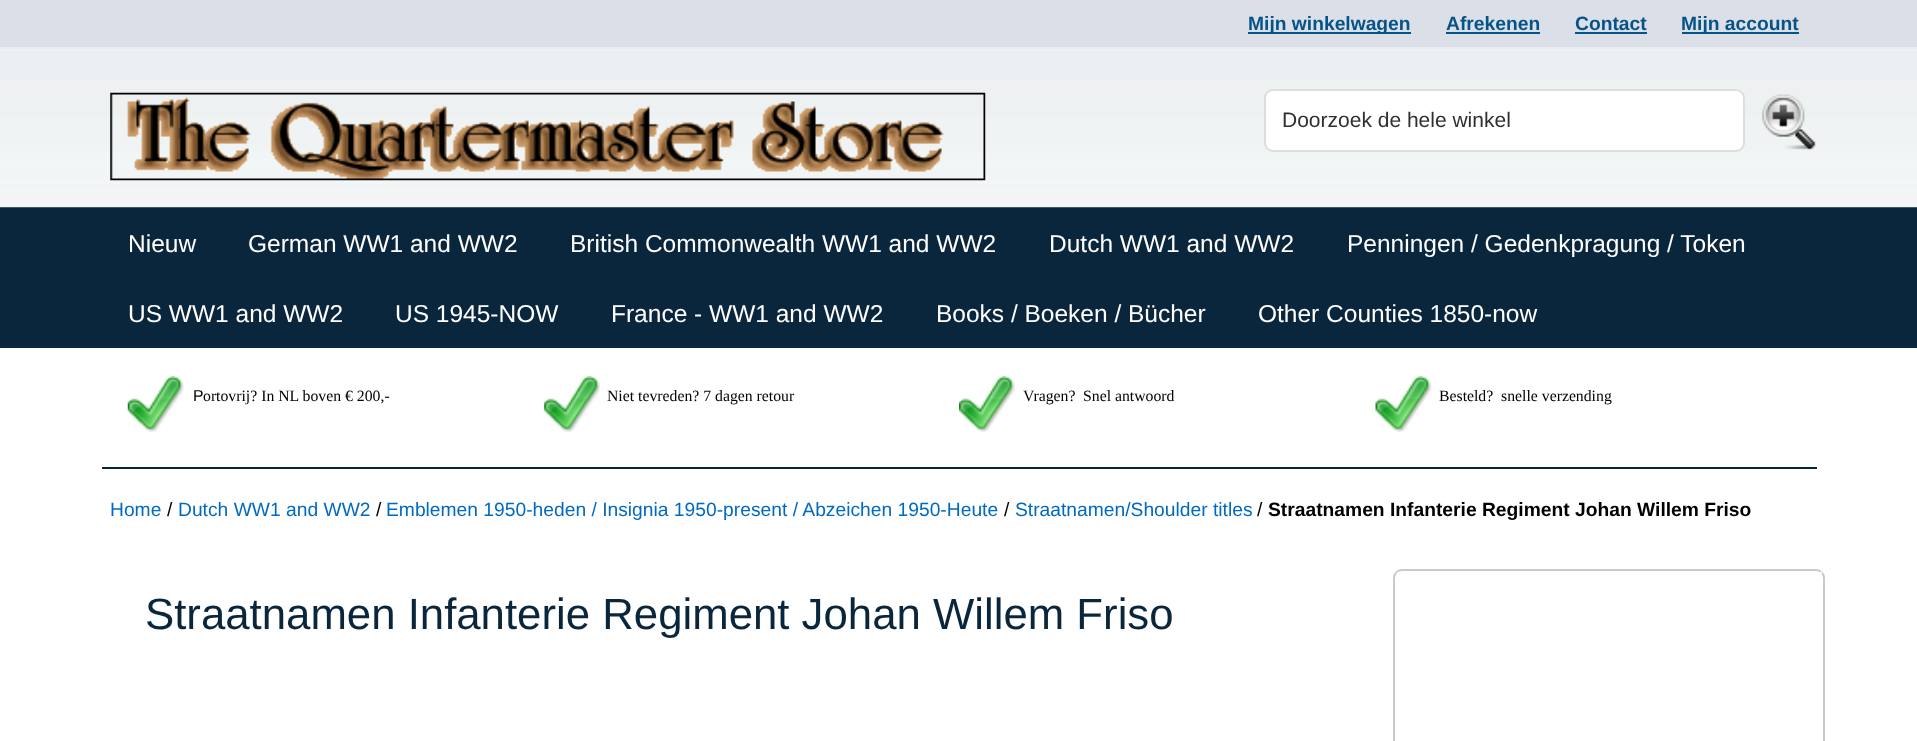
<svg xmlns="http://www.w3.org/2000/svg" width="1917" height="741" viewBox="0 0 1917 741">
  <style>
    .t1 { font: bold 19.25px Liberation Sans; fill: #065387; }
    .t2 { font: 21px Liberation Sans; fill: #2f2f2f; }
    .t3 { font: 24.5px Liberation Sans; fill: #fff; }
    .t4 { font: 15.75px Liberation Sans; fill: #000; }
    .t5 { font: 15.75px Liberation Serif; fill: #000; }
    .t6 { font: 19.25px Liberation Sans; fill: #006ac3; }
    .t7 { font: 19.25px Liberation Sans; fill: #000; }
    .t8 { font: bold 19.25px Liberation Sans; fill: #000; }
    .t9 { font: 43.75px Liberation Sans; fill: #0a263c; }
  </style>
  <rect width="100%" height="100%" fill="#fff"/>
  <rect x="0" y="0" width="1917" height="47" fill="#dbe0e8"/>
  <rect x="1248" y="32" width="163" height="2" fill="#065387"/>
  <text x="1248" y="30" class="t1">Mijn winkelwagen</text>
  <text x="1446" y="30" class="t1">Afrekenen</text>
  <rect x="1446" y="32" width="94" height="2" fill="#065387"/>
  <text x="1575" y="30" class="t1">Contact</text>
  <rect x="1575" y="32" width="72" height="2" fill="#065387"/>
  <rect x="1682" y="32" width="117" height="2" fill="#065387"/>
  <text x="1681" y="30" class="t1">Mijn account</text>
  <image x="0" y="49" width="1917" height="158" href="images/1.png"/>
  <rect x="0" y="47" width="1917" height="2" fill="#ebebeb"/>
  <rect x="0" y="207" width="1917" height="1" fill="#415966"/>
  <image x="110" y="92" width="876" height="89" href="images/2.png"/>
  <rect x="1265" y="90" width="479" height="61" rx="8" fill="#fff" stroke="#ddd" stroke-width="2"/>
  <text x="1282" y="127" class="t2">Doorzoek de hele winkel</text>
  <image x="1761" y="94" width="55" height="56" href="images/3.png"/>
  <rect x="0" y="208" width="1917" height="140" fill="#0a263d"/>
  <text x="128" y="252" class="t3">Nieuw</text>
  <text x="248" y="252" class="t3">German WW1 and WW2</text>
  <text x="570" y="252" class="t3">British Commonwealth WW1 and WW2</text>
  <text x="1049" y="252" class="t3">Dutch WW1 and WW2</text>
  <text x="1347" y="252" class="t3">Penningen / Gedenkpragung / Token</text>
  <text x="128" y="322" class="t3">US WW1 and WW2</text>
  <text x="395" y="322" class="t3">US 1945-NOW</text>
  <text x="611" y="322" class="t3">France - WW1 and WW2</text>
  <text x="936" y="322" class="t3">Books / Boeken / Bücher</text>
  <text x="1258" y="322" class="t3">Other Counties 1850-now</text>
  <rect x="102" y="467" width="1715" height="2" fill="#0a263d"/>
  <image x="127" y="376" width="57" height="56" href="images/4.png"/>
  <text x="193" y="401" class="t4">P</text>
  <text x="203" y="401" class="t5">ortovrij? In NL boven € 200,-</text>
  <image x="544" y="376" width="56" height="56" href="images/5.png"/>
  <text x="607" y="401" class="t5">Niet tevreden? 7 dagen retour</text>
  <image x="959" y="376" width="56" height="56" href="images/6.png"/>
  <text x="1023" y="401" class="t5">Vragen?</text>
  <text x="1083" y="401" class="t5">Snel antwoord</text>
  <image x="1375" y="376" width="57" height="56" href="images/7.png"/>
  <text x="1439" y="401" class="t5" xml:space="preserve">Besteld?  snelle verzending</text>
  <text x="110" y="516" class="t6">Home</text>
  <text x="167" y="516" class="t7">/</text>
  <text x="178" y="516" class="t6">Dutch WW1 and WW2</text>
  <text x="376" y="516" class="t7">/</text>
  <text x="386" y="516" class="t6">Emblemen 1950-heden / Insignia 1950-present / Abzeichen 1950-Heute</text>
  <text x="1004" y="516" class="t7">/</text>
  <text x="1015" y="516" class="t6">Straatnamen/Shoulder titles</text>
  <text x="1257" y="516" class="t7">/</text>
  <text x="1268" y="516" class="t8">Straatnamen Infanterie Regiment Johan Willem Friso</text>
  <text x="145" y="629" class="t9">Straatnamen Infanterie Regiment Johan Willem Friso</text>
  <rect x="1394" y="570" width="430" height="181" rx="8" fill="none" stroke="#c9c9c9" stroke-width="2"/>
  <rect x="1397" y="572" width="425" height="3" fill="#fff"/>
</svg>
